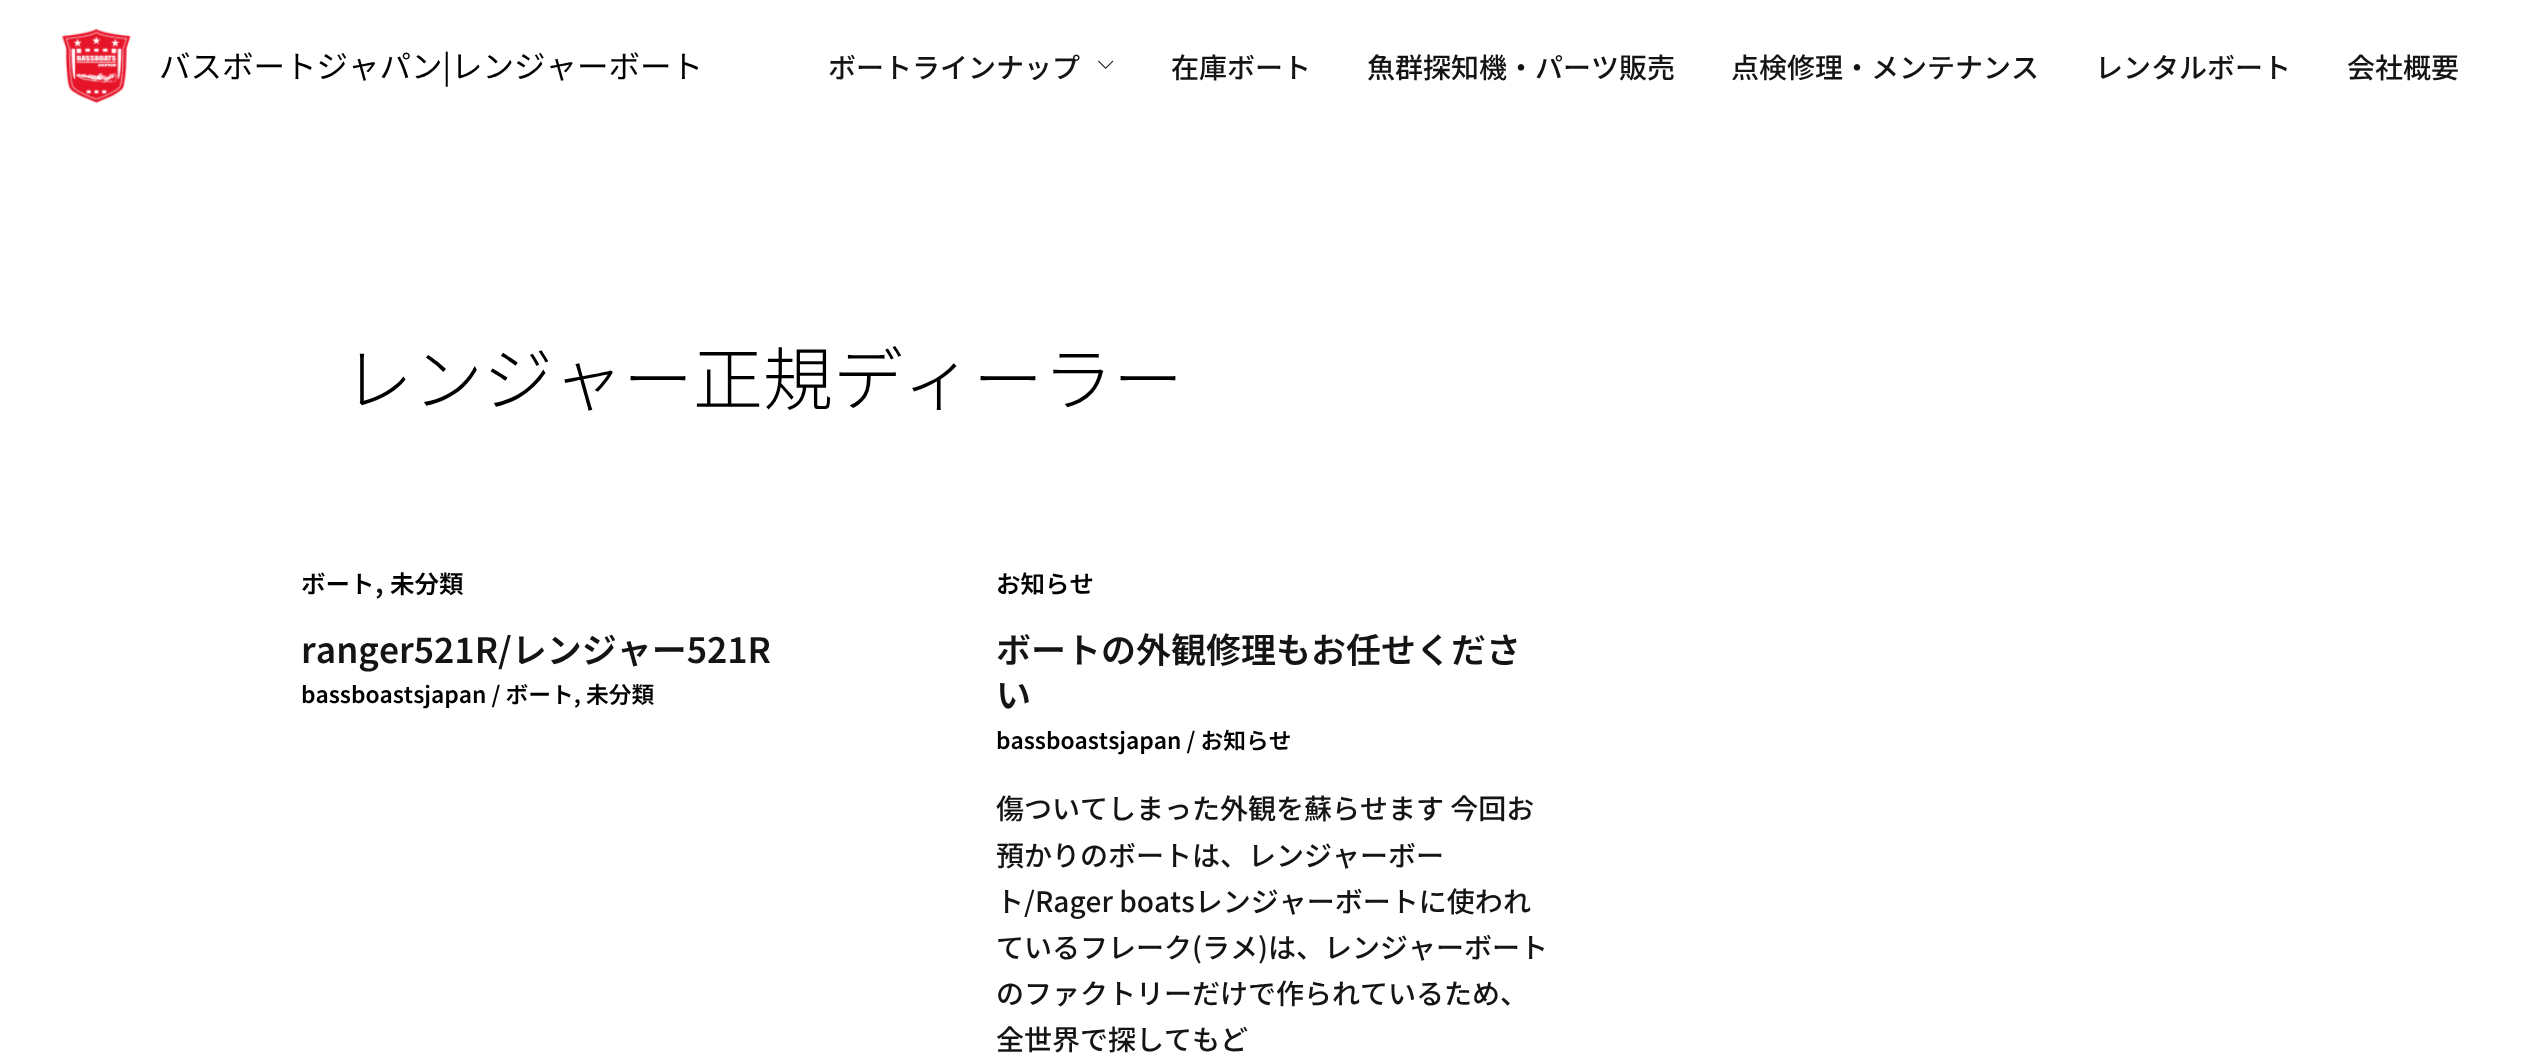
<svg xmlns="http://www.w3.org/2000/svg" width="2547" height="1059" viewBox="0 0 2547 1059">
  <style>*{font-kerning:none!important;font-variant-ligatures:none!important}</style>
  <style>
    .t1 { font: 31.5px Noto Sans JP; fill: #000; }
    .t2 { font: 500 28px Noto Sans JP; fill: #141414; }
    .t3 { font: 300 70px Noto Sans JP; fill: #000; }
    .t4 { font: 600 24.5px Noto Sans JP; fill: #000; }
    .t5 { font: 600 28px Noto Sans JP; fill: #141414; }
    .t6 { font: 600 35px Noto Sans JP; fill: #141414; }
    .t7 { font: 600 22.75px Noto Sans JP; fill: #000; }
  </style>
  <rect width="100%" height="100%" fill="#fff"/>
  <image x="61" y="28" width="71" height="76" href="images/1.png"/>
  <text x="159" y="78" class="t1">バスボートジャパン|レンジャーボート</text>
  <text x="828" y="78" class="t2">ボートラインナップ</text>
  <image x="1098" y="60" width="16" height="9" href="images/2.png"/>
  <text x="1171" y="78" class="t2">在庫ボート</text>
  <text x="1367" y="78" class="t2">魚群探知機・パーツ販売</text>
  <text x="1731" y="78" class="t2">点検修理・メンテナンス</text>
  <text x="2095" y="78" class="t2">レンタルボート</text>
  <text x="2347" y="78" class="t2">会社概要</text>
  <text x="343" y="405" class="t3">レンジャー正規ディーラー</text>
  <text x="301" y="593" class="t4">ボート</text>
  <text x="375" y="593" class="t5">,</text>
  <text x="390" y="593" class="t4">未分類</text>
  <text x="301" y="663" class="t6">ranger521R/レンジャー521R</text>
  <text x="301" y="703" class="t7">bassboastsjapan / ボート, 未分類</text>
  <text x="996" y="593" class="t4">お知らせ</text>
  <text x="996" y="663" class="t6">ボートの外観修理もお任せくださ</text>
  <text x="996" y="708" class="t6">い</text>
  <text x="996" y="749" class="t7">bassboastsjapan / お知らせ</text>
  <text x="996" y="819" class="t2">傷ついてしまった外観を蘇らせます 今回お</text>
  <text x="996" y="866" class="t2">預かりのボートは、レンジャーボー</text>
  <text x="996" y="912" class="t2">ト/Rager boatsレンジャーボートに使わ</text>
  <text x="1503" y="912" class="t2">れ</text>
  <text x="996" y="958" class="t2">ているフレーク(ラメ)は、レンジャーボート</text>
  <text x="996" y="1004" class="t2">のファクトリーだけで作られているため、</text>
  <text x="996" y="1050" class="t2">全世界で探してもど</text>
</svg>
